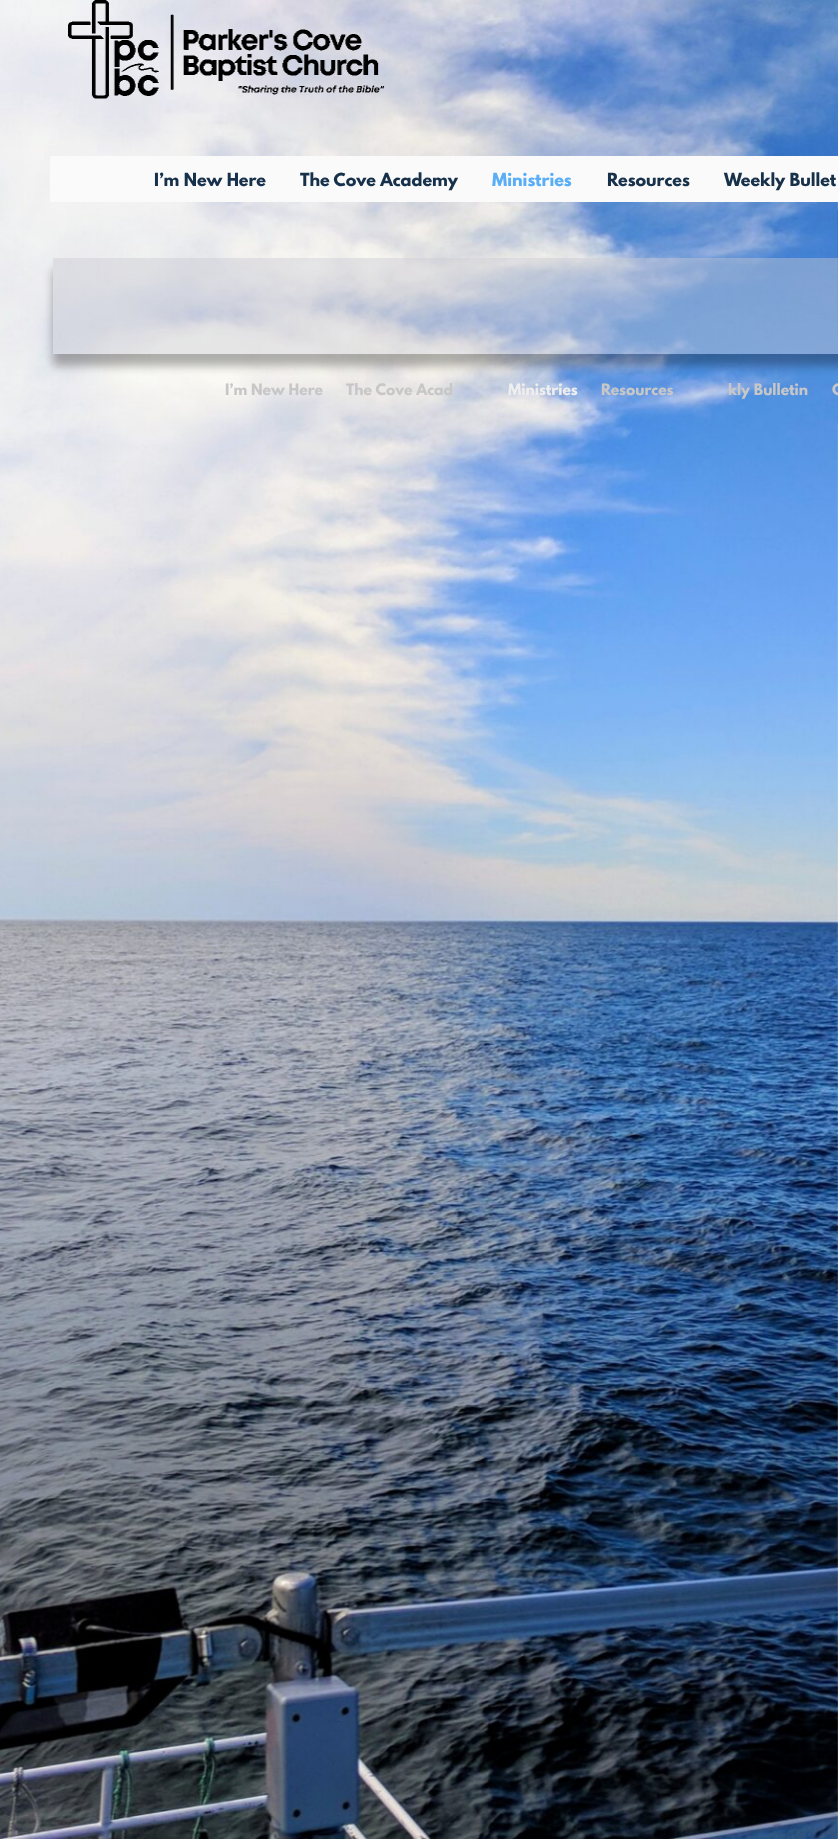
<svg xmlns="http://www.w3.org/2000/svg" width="838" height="1839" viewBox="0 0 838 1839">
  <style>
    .t1 { font: bold 16px League Spartan; fill: #17314b; }
    .t2 { font: bold 16px League Spartan; fill: #5aaef7; }
    .t3 { font: bold 14px League Spartan; fill: #c8c7c7; }
    .t4 { font: bold 14px League Spartan; fill: #eee; }
  </style>
  <defs>
    <clipPath id="clip1"><path d="M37 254H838V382H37ZM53 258H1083V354H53Z" clip-rule="evenodd"/></clipPath>
  </defs>
  <rect width="100%" height="100%" fill="#fff"/>
  <image x="0" y="0" width="838" height="1839" href="images/1.png"/>
  <image x="837" y="202" width="1" height="134" href="images/2.png"/>
  <image x="0" y="0" width="838" height="424" href="images/3.png"/>
  <image x="68" y="0" width="317" height="99" href="images/4.png"/>
  <rect x="50" y="156" width="788" height="46" fill="#fafafa"/>
  <text x="154" y="186" class="t1">I’m New Here</text>
  <text x="300" y="186" class="t1">The Cove Academy</text>
  <text x="492" y="186" class="t2">Ministries</text>
  <text x="607" y="186" class="t1">Resources</text>
  <text x="724" y="186" class="t1">Weekly Bullet</text>
  <g clip-path="url(#clip1)">
    <rect x="53" y="270" width="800" height="96" fill="#0000004d" filter="blur(5px)"/>
  </g>
  <rect x="53" y="258" width="785" height="96" fill="#cac9d46e"/>
  <text x="225" y="395" class="t3">I’m New Here</text>
  <text x="346" y="395" class="t3">The Cove Acad</text>
  <text x="508" y="395" class="t4">Ministries</text>
  <text x="601" y="395" class="t3">Resources</text>
  <text x="728" y="395" class="t3">kly Bulletin</text>
  <text x="832" y="395" class="t3">C</text>
</svg>
